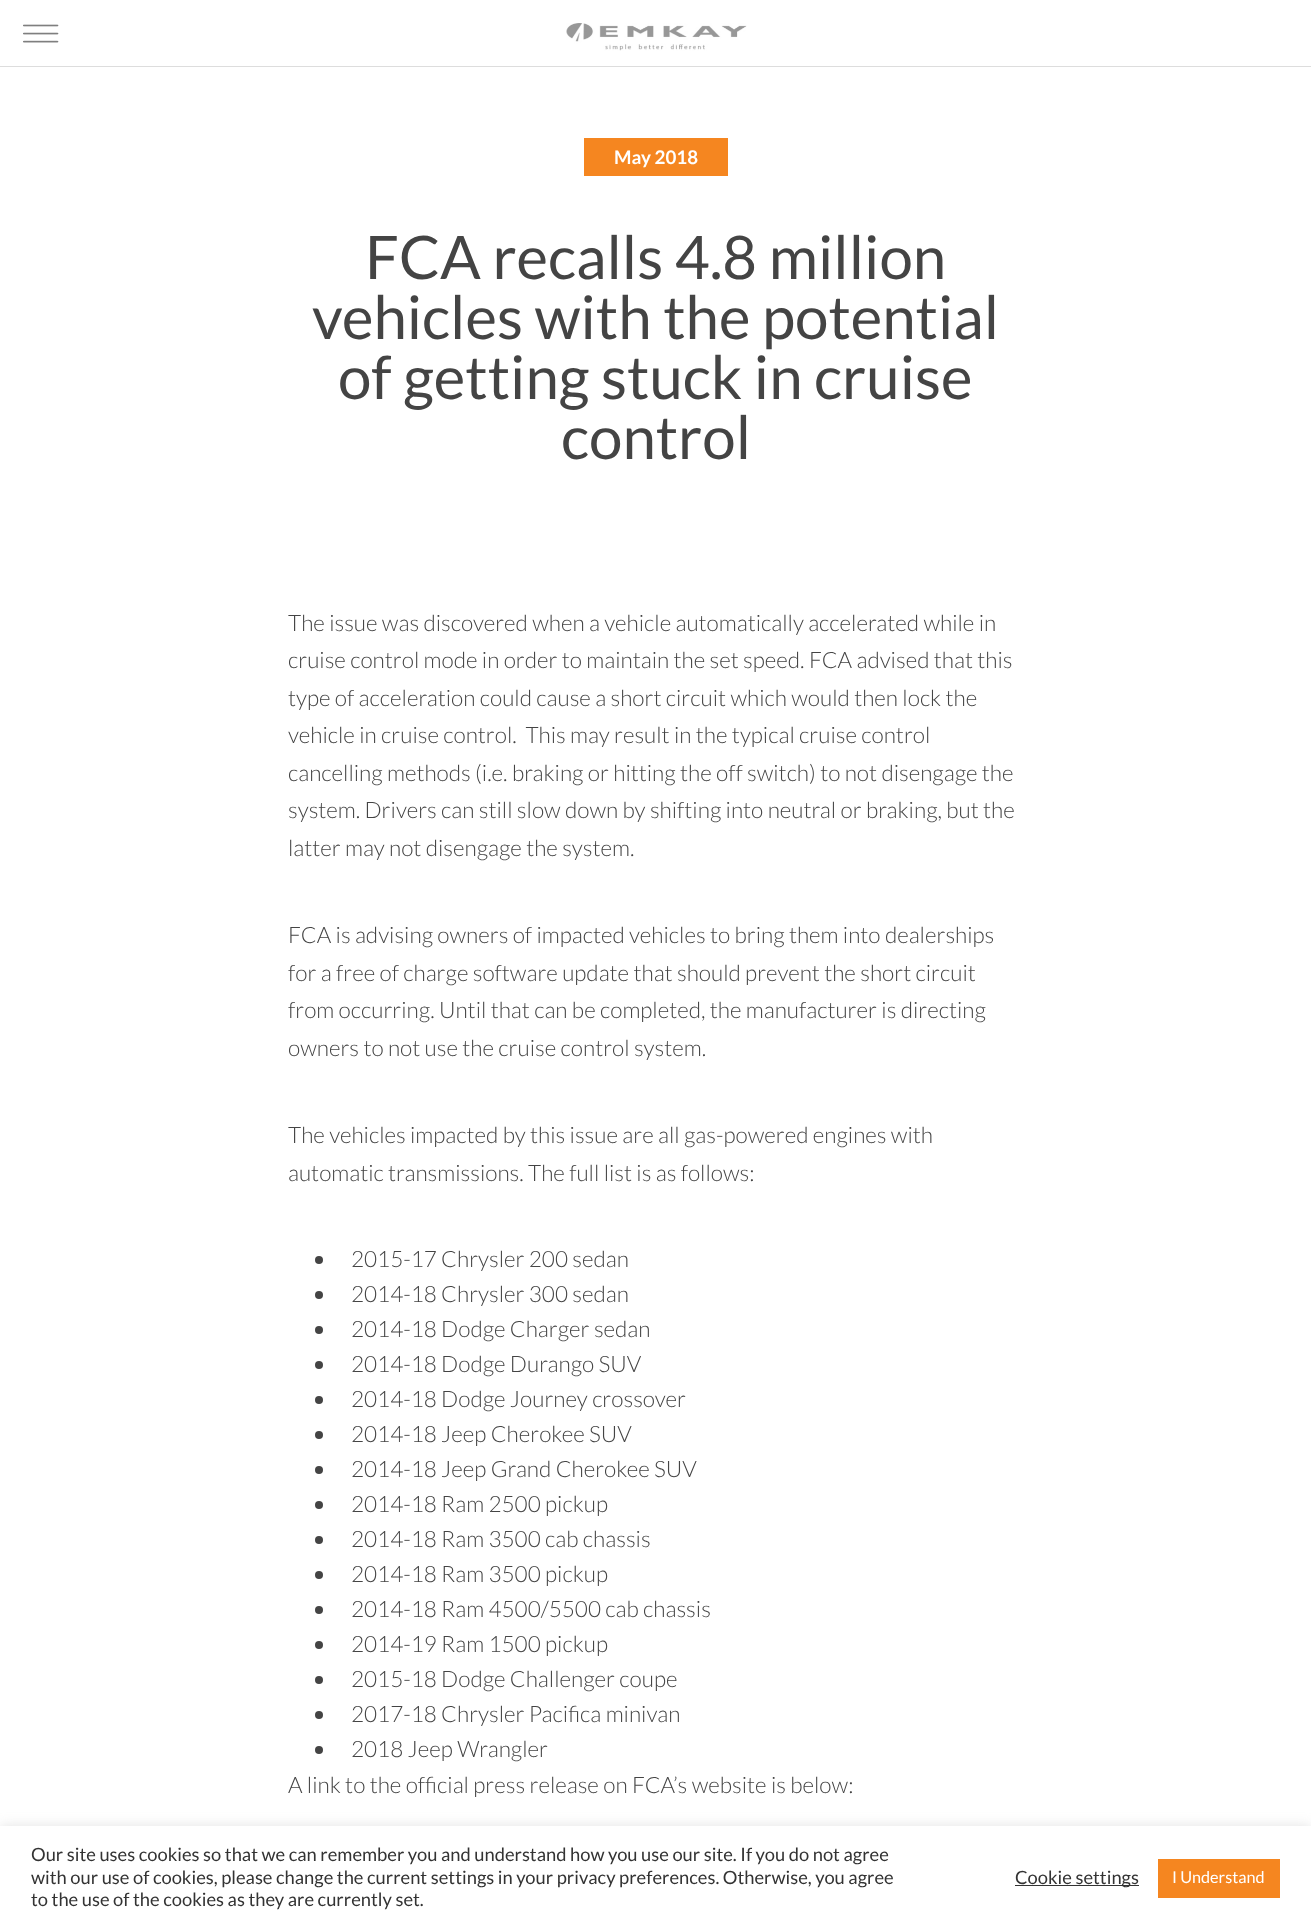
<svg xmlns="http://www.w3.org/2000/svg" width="1311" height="1928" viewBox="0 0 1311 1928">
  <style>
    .t1 { font: bold 18.75px Lato; fill: #fff; }
    .t2 { font: 60px Lato; fill: #444; }
    .t3 { font: 300 22.5px Lato; fill: #444; }
    .t4 { font: 18.35px Lato; fill: #333; }
    .t5 { font: 16.25px Lato; fill: #fff; }
  </style>
  <rect width="100%" height="100%" fill="#fff"/>
  <rect x="0" y="66" width="1311" height="1" fill="#ddd"/>
  <image x="23" y="24" width="36" height="19" href="images/1.png"/>
  <image x="566" y="23" width="181" height="28" href="images/2.png"/>
  <rect x="584" y="138" width="144" height="38" fill="#f58620"/>
  <text x="614" y="164" class="t1">May 2018</text>
  <text x="365" y="279" class="t2">FCA recalls 4.8 million</text>
  <text x="312" y="339" class="t2">vehicles with the potential</text>
  <text x="338" y="399" class="t2">of getting stuck in cruise</text>
  <text x="561" y="459" class="t2">control</text>
  <text x="288" y="631" class="t3">The issue was discovered when a vehicle automatically accelerated while in</text>
  <text x="288" y="668" class="t3">cruise control mode in order to maintain the set speed. FCA advised that this</text>
  <text x="288" y="706" class="t3">type of acceleration could cause a short circuit which would then lock the</text>
  <text x="288" y="743" class="t3" xml:space="preserve">vehicle in cruise control.  This may result in the typical cruise control</text>
  <text x="288" y="781" class="t3">cancelling methods (i.e. braking or hitting the off switch) to not disengage the</text>
  <text x="288" y="818" class="t3">system. Drivers can still slow down by shifting into neutral or braking, but the</text>
  <text x="288" y="856" class="t3">latter may not disengage the system.</text>
  <text x="288" y="943" class="t3">FCA is advising owners of impacted vehicles to bring them into dealerships</text>
  <text x="288" y="981" class="t3">for a free of charge software update that should prevent the short circuit</text>
  <text x="288" y="1018" class="t3">from occurring. Until that can be completed, the manufacturer is directing</text>
  <text x="288" y="1056" class="t3">owners to not use the cruise control system.</text>
  <text x="288" y="1143" class="t3">The vehicles impacted by this issue are all gas-powered engines with</text>
  <text x="288" y="1181" class="t3">automatic transmissions. The full list is as follows:</text>
  <circle cx="319" cy="1260" r="4" fill="#444"/>
  <text x="351" y="1267" class="t3">2015-17 Chrysler 200 sedan</text>
  <circle cx="319" cy="1295" r="4" fill="#444"/>
  <text x="351" y="1302" class="t3">2014-18 Chrysler 300 sedan</text>
  <circle cx="319" cy="1330" r="4" fill="#444"/>
  <text x="351" y="1337" class="t3">2014-18 Dodge Charger sedan</text>
  <circle cx="319" cy="1365" r="4" fill="#444"/>
  <text x="351" y="1372" class="t3">2014-18 Dodge Durango SUV</text>
  <circle cx="319" cy="1400" r="4" fill="#444"/>
  <text x="351" y="1407" class="t3">2014-18 Dodge Journey crossover</text>
  <circle cx="319" cy="1435" r="4" fill="#444"/>
  <text x="351" y="1442" class="t3">2014-18 Jeep Cherokee SUV</text>
  <circle cx="319" cy="1470" r="4" fill="#444"/>
  <text x="351" y="1477" class="t3">2014-18 Jeep Grand Cherokee SUV</text>
  <circle cx="319" cy="1505" r="4" fill="#444"/>
  <text x="351" y="1512" class="t3">2014-18 Ram 2500 pickup</text>
  <circle cx="319" cy="1540" r="4" fill="#444"/>
  <text x="351" y="1547" class="t3">2014-18 Ram 3500 cab chassis</text>
  <circle cx="319" cy="1575" r="4" fill="#444"/>
  <text x="351" y="1582" class="t3">2014-18 Ram 3500 pickup</text>
  <circle cx="319" cy="1610" r="4" fill="#444"/>
  <text x="351" y="1617" class="t3">2014-18 Ram 4500/5500 cab chassis</text>
  <circle cx="319" cy="1645" r="4" fill="#444"/>
  <text x="351" y="1652" class="t3">2014-19 Ram 1500 pickup</text>
  <circle cx="319" cy="1680" r="4" fill="#444"/>
  <text x="351" y="1687" class="t3">2015-18 Dodge Challenger coupe</text>
  <circle cx="319" cy="1715" r="4" fill="#444"/>
  <text x="351" y="1722" class="t3">2017-18 Chrysler Pacifica minivan</text>
  <circle cx="319" cy="1750" r="4" fill="#444"/>
  <text x="351" y="1757" class="t3">2018 Jeep Wrangler</text>
  <text x="288" y="1793" class="t3">A link to the official press release on FCA’s website is below:</text>
  <rect x="0" y="1825" width="1311" height="103" fill="#acabab4d" filter="blur(6px)"/>
  <rect x="0" y="1826" width="1311" height="102" fill="#fff"/>
  <text x="31" y="1861" class="t4">Our site uses cookies so that we can remember you and understand how you use our site. If you do not agree</text>
  <text x="31" y="1884" class="t4">with our use of cookies, please change the current settings in your privacy preferences. Otherwise, you agree</text>
  <text x="31" y="1906" class="t4">to the use of the cookies as they are currently set.</text>
  <rect x="1015" y="1885" width="124" height="1" fill="#333"/>
  <text x="1015" y="1884" class="t4">Cookie settings</text>
  <rect x="1158" y="1859" width="122" height="39" fill="#f58620"/>
  <text x="1172" y="1883" class="t5">I Understand</text>
</svg>
